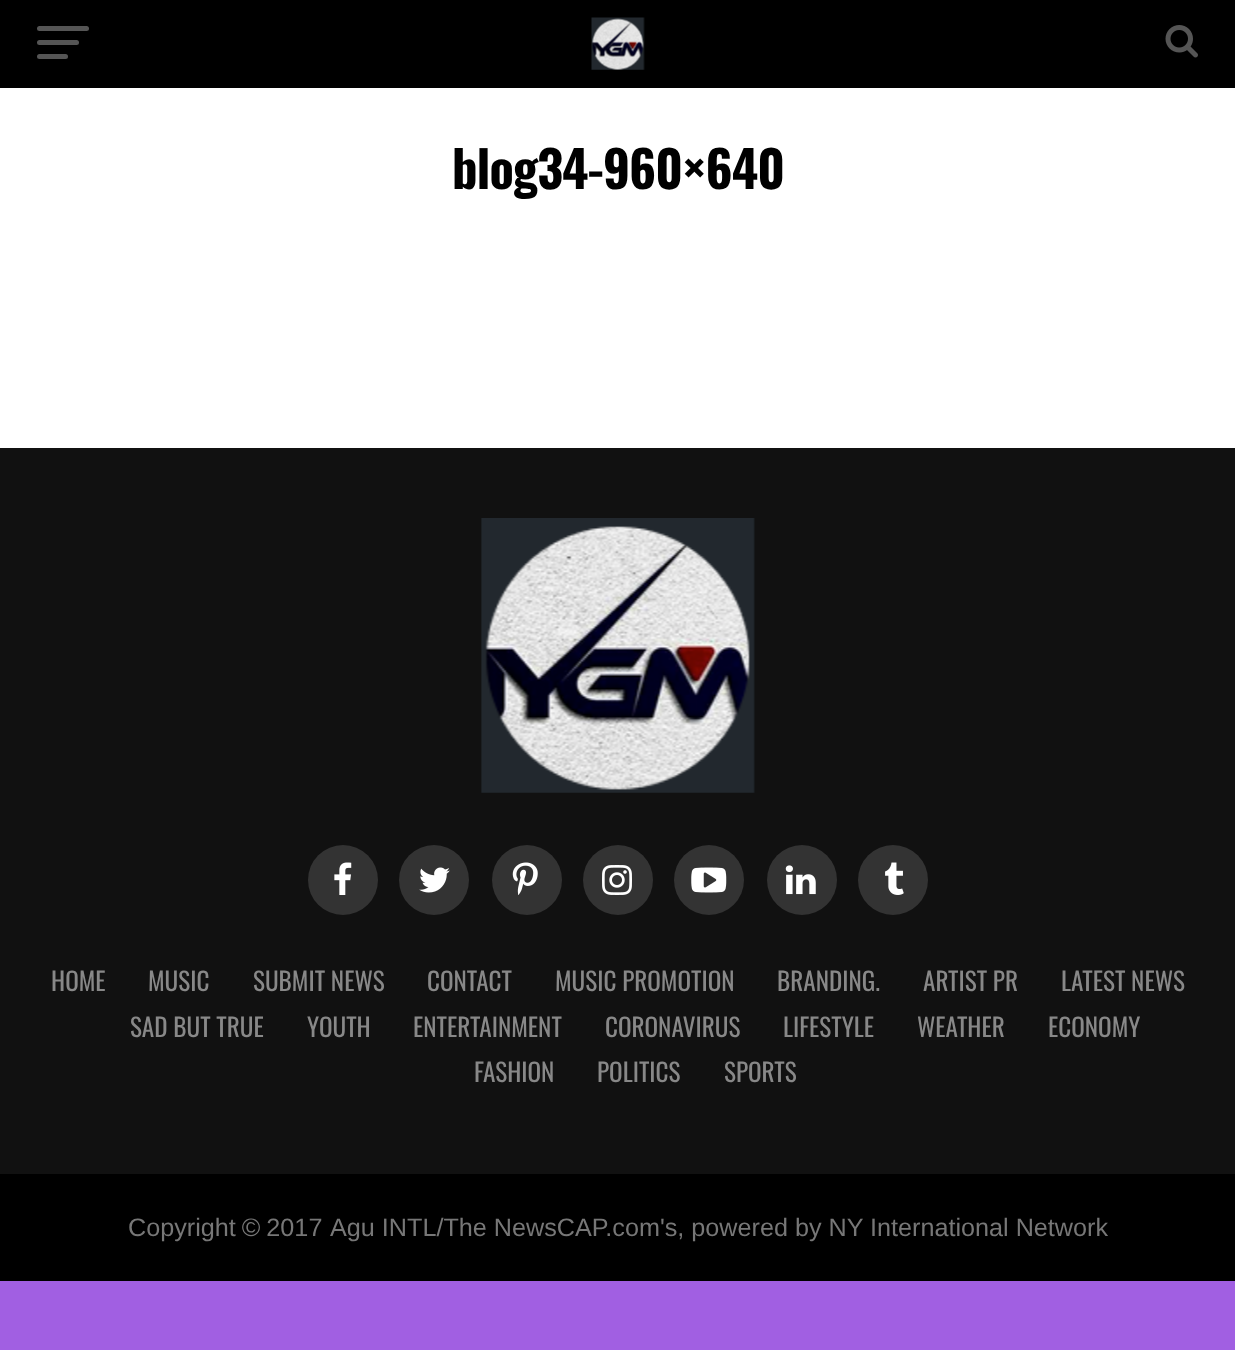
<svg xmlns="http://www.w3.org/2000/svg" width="1235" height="1350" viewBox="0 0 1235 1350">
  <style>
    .t1 { font: bold 50.5px Oswald; letter-spacing: -1px; fill: #000; }
    .t2 { font: 25.2px Oswald; fill: #888; }
    .t3 { font: 25.2px Liberation Sans; fill: #777; }
  </style>
  <rect width="100%" height="100%" fill="#a15fe2"/>
  <rect x="0" y="0" width="1235" height="88" fill="#000"/>
  <rect x="37" y="26" width="52" height="5" rx="2.5" fill="#555"/>
  <rect x="37" y="40" width="42" height="5" rx="2.5" fill="#555"/>
  <rect x="37" y="54" width="31" height="5" rx="2.5" fill="#555"/>
  <image x="591" y="17" width="54" height="53" href="images/1.png"/>
  <image x="1165" y="25" width="33" height="33" href="images/2.png"/>
  <rect x="0" y="88" width="1235" height="360" fill="#fff"/>
  <text x="452" y="189" class="t1">blog34-960×640</text>
  <rect x="0" y="448" width="1235" height="726" fill="#111"/>
  <image x="481" y="518" width="274" height="275" href="images/3.png"/>
  <circle cx="343" cy="880" r="35" fill="#333"/>
  <image x="334" y="862" width="18" height="33" href="images/4.png"/>
  <circle cx="434" cy="880" r="35" fill="#333"/>
  <image x="419" y="867" width="31" height="26" href="images/5.png"/>
  <circle cx="527" cy="880" r="35" fill="#333"/>
  <image x="512" y="862" width="26" height="33" href="images/6.png"/>
  <circle cx="618" cy="880" r="35" fill="#333"/>
  <image x="602" y="865" width="30" height="30" href="images/7.png"/>
  <circle cx="709" cy="880" r="35" fill="#333"/>
  <image x="691" y="867" width="36" height="26" href="images/8.png"/>
  <circle cx="802" cy="880" r="35" fill="#333"/>
  <image x="785" y="865" width="31" height="30" href="images/9.png"/>
  <circle cx="893" cy="880" r="35" fill="#333"/>
  <image x="885" y="862" width="19" height="33" href="images/10.png"/>
  <text x="51" y="991" class="t2">HOME</text>
  <text x="148" y="991" class="t2">MUSIC</text>
  <text x="253" y="991" class="t2">SUBMIT NEWS</text>
  <text x="427" y="991" class="t2">CONTACT</text>
  <text x="555" y="991" class="t2">MUSIC PROMOTION</text>
  <text x="777" y="991" class="t2">BRANDING.</text>
  <text x="923" y="991" class="t2">ARTIST PR</text>
  <text x="1061" y="991" class="t2">LATEST NEWS</text>
  <text x="130" y="1037" class="t2">SAD BUT TRUE</text>
  <text x="307" y="1037" class="t2">YOUTH</text>
  <text x="413" y="1037" class="t2">ENTERTAINMENT</text>
  <text x="605" y="1037" class="t2">CORONAVIRUS</text>
  <text x="783" y="1037" class="t2">LIFESTYLE</text>
  <text x="917" y="1037" class="t2">WEATHER</text>
  <text x="1048" y="1037" class="t2">ECONOMY</text>
  <text x="474" y="1082" class="t2">FASHION</text>
  <text x="597" y="1082" class="t2">POLITICS</text>
  <text x="724" y="1082" class="t2">SPORTS</text>
  <rect x="0" y="1174" width="1235" height="107" fill="#000"/>
  <text x="128" y="1236" word-spacing="-1" class="t3">Copyright © 2017</text>
  <text x="330" y="1236" class="t3">Agu INTL/The NewsCAP.com's, powered by NY International Network</text>
</svg>
